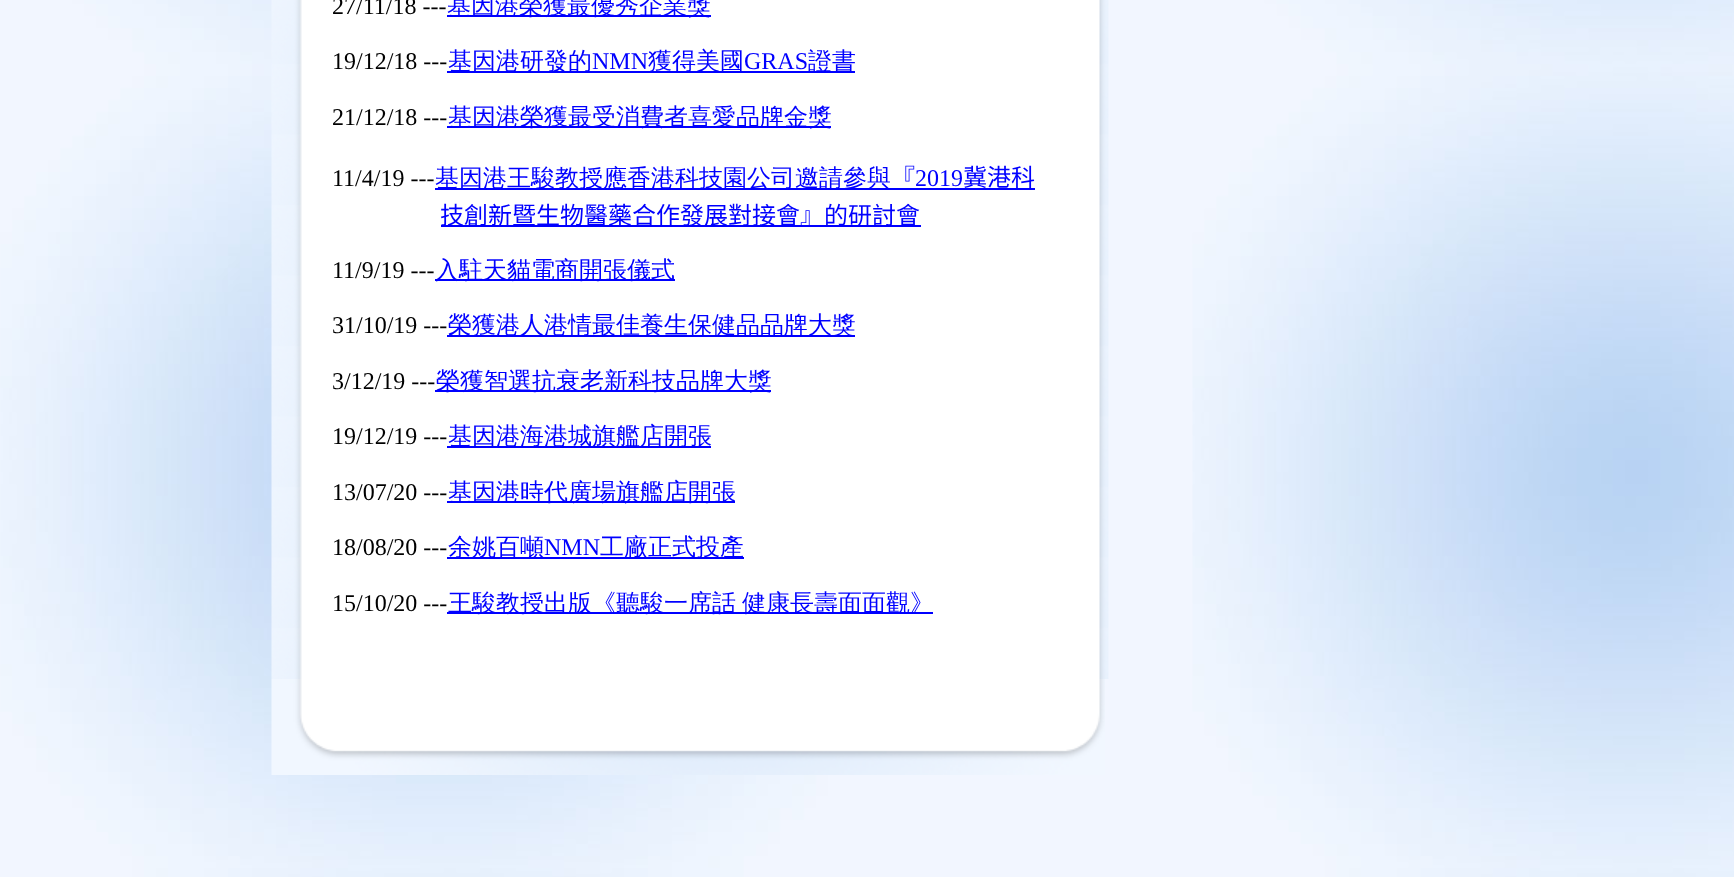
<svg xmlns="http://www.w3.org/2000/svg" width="1734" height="877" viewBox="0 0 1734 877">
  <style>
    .t1 { font: 24px Liberation Serif; fill: #000; }
    .t2 { font: 500 24px WenQuanYi Zen Hei; fill: #00f; }
    .t3 { font: 24px Liberation Serif; fill: #00f; }
    .t4 { font: 24px Noto Sans CJK SC; fill: #00f; }
  </style>
  <rect width="100%" height="100%" fill="#fff"/>
  <image x="0" y="0" width="1734" height="877" href="images/1.png"/>
  <image x="271" y="0" width="838" height="679" href="images/2.png"/>
  <text x="332" y="14" class="t1">27/11/18 ---</text>
  <rect x="447" y="15" width="264" height="2" fill="#00f"/>
  <text x="447" y="14" class="t2">基因港榮獲最優秀企業獎</text>
  <text x="332" y="69" class="t1">19/12/18 ---</text>
  <rect x="447" y="71" width="408" height="2" fill="#00f"/>
  <text x="448" y="69" class="t2">基因港研發的</text>
  <text x="592" y="69" class="t3">NMN</text>
  <text x="648" y="69" class="t2">獲得美國</text>
  <text x="744" y="69" class="t3">GRAS</text>
  <text x="808" y="69" class="t2">證書</text>
  <text x="332" y="125" class="t1">21/12/18 ---</text>
  <rect x="447" y="126" width="384" height="2" fill="#00f"/>
  <text x="448" y="125" class="t2">基因港榮獲最受消費者喜愛品牌金獎</text>
  <text x="332" y="186" class="t1">11/4/19 ---</text>
  <rect x="435" y="188" width="600" height="2" fill="#00f"/>
  <text x="435" y="186" class="t2">基因港王駿教授應香港科技園公司邀請參與</text>
  <text x="891" y="186" class="t4">『</text>
  <text x="915" y="186" class="t3">2019</text>
  <text x="963" y="186" class="t4">冀港科</text>
  <rect x="441" y="225" width="480" height="2" fill="#00f"/>
  <text x="440" y="224" class="t4">技創新暨生物醫藥合作發展對接會』的研討會</text>
  <text x="332" y="278" class="t1">11/9/19 ---</text>
  <rect x="435" y="279" width="240" height="2" fill="#00f"/>
  <text x="435" y="278" class="t2">入駐天貓電商開張儀式</text>
  <text x="332" y="333" class="t1">31/10/19 ---</text>
  <rect x="447" y="335" width="408" height="2" fill="#00f"/>
  <text x="448" y="333" class="t2">榮獲港人港情最佳養生保健品品牌大獎</text>
  <text x="332" y="389" class="t1">3/12/19 ---</text>
  <rect x="435" y="390" width="336" height="2" fill="#00f"/>
  <text x="436" y="389" class="t2">榮獲智選抗衰老新科技品牌大獎</text>
  <text x="332" y="444" class="t1">19/12/19 ---</text>
  <rect x="447" y="446" width="264" height="2" fill="#00f"/>
  <text x="448" y="444" class="t2">基因港海港城旗艦店開張</text>
  <text x="332" y="500" class="t1">13/07/20 ---</text>
  <rect x="447" y="501" width="288" height="2" fill="#00f"/>
  <text x="448" y="500" class="t2">基因港時代廣場旗艦店開張</text>
  <text x="332" y="555" class="t1">18/08/20 ---</text>
  <rect x="447" y="557" width="297" height="2" fill="#00f"/>
  <text x="448" y="555" class="t2">余姚百噸</text>
  <text x="544" y="555" class="t3">NMN</text>
  <text x="600" y="555" class="t2">工廠正式投產</text>
  <text x="332" y="611" class="t1">15/10/20 ---</text>
  <rect x="447" y="612" width="486" height="2" fill="#00f"/>
  <text x="448" y="611" class="t2">王駿教授出版《聽駿一席話</text>
  <text x="742" y="611" class="t2">健康長壽面面觀》</text>
  <image x="271" y="679" width="834" height="96" href="images/3.png"/>
</svg>
